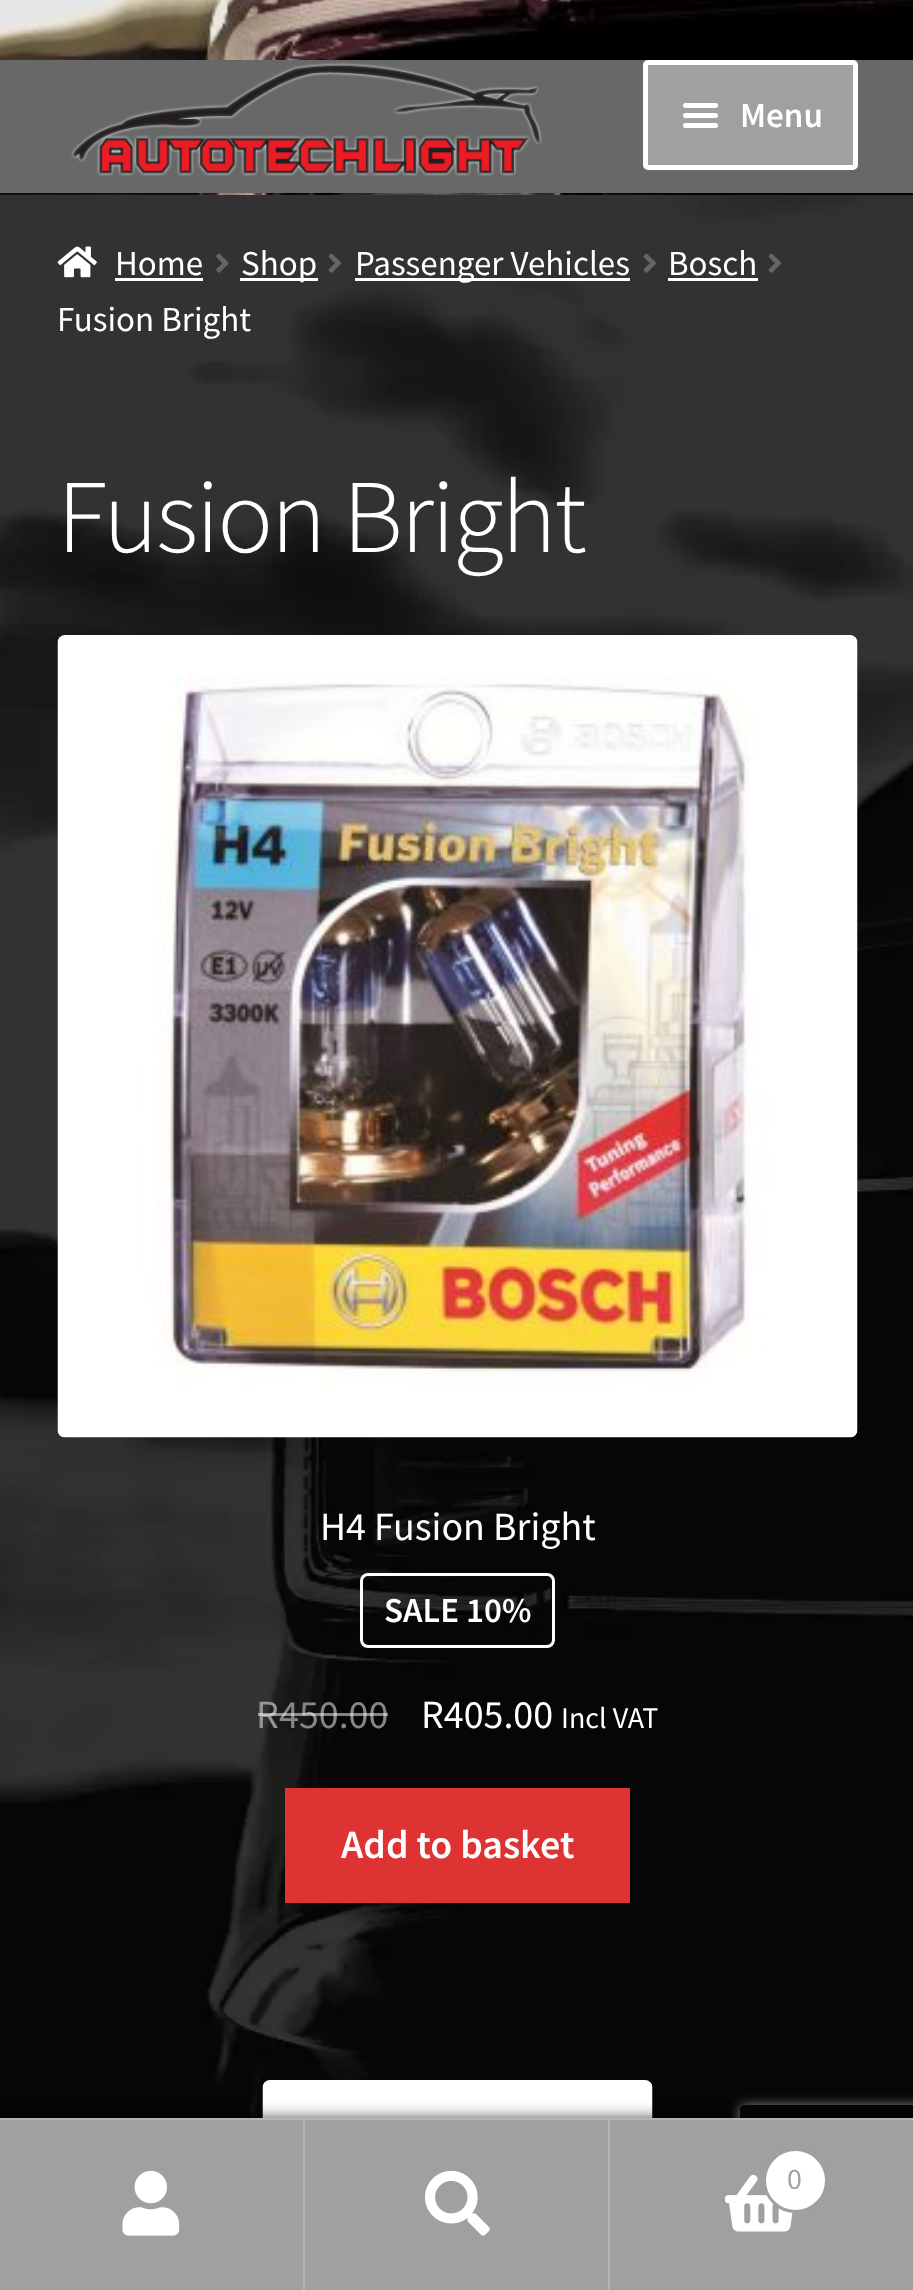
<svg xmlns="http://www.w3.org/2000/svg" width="913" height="2290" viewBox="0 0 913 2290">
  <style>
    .t1 { font: 600 35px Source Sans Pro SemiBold; fill: #fff; }
    .t2 { font: 35px Source Sans Pro; fill: #fff; }
    .t3 { font: 300 104.75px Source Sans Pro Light; letter-spacing: -2.5px; fill: #fff; }
    .t4 { font: 40px Source Sans Pro; fill: #fff; }
    .t5 { font: 40px Source Sans Pro; fill: #949493; }
    .t6 { font: 40px Source Sans Pro; fill: #868686; }
    .t7 { font: 30px Source Sans Pro; fill: #fff; }
    .t8 { font: 600 40px Source Sans Pro SemiBold; fill: #fff; }
    .t9 { font: 30px Source Sans Pro; fill: #a0a0a0; }
  </style>
  <defs>
    <clipPath id="clip1"><path d="M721 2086H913V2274H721ZM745 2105H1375C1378 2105 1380 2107 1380 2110V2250C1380 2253 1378 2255 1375 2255H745C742 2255 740 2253 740 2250V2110C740 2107 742 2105 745 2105Z" clip-rule="evenodd"/></clipPath>
  </defs>
  <rect width="100%" height="100%" fill="#fff"/>
  <image x="0" y="195" width="913" height="1923" href="images/1.png"/>
  <image x="0" y="0" width="913" height="195" href="images/2.png"/>
  <rect x="0" y="60" width="913" height="133" fill="#686868"/>
  <image x="71" y="62" width="471" height="115" href="images/3.png"/>
  <rect x="645.5" y="62.5" width="210" height="105" rx="2.5" fill="#a0a0a0" stroke="#fff" stroke-width="5"/>
  <rect x="683" y="103" width="35" height="5" rx="2.5" fill="#fff"/>
  <rect x="683" y="113" width="35" height="5" rx="2.5" fill="#fff"/>
  <text x="740" y="127" class="t1">Menu</text>
  <rect x="683" y="123" width="35" height="5" rx="2.5" fill="#fff"/>
  <image x="57" y="246" width="40" height="32" href="images/4.png"/>
  <text x="115" y="275" class="t2">Home</text>
  <rect x="115" y="278" width="88" height="3" fill="#fff"/>
  <image x="216" y="253" width="13" height="20" href="images/5.png"/>
  <rect x="240" y="278" width="78" height="3" fill="#fff"/>
  <text x="241" y="275" class="t2">Shop</text>
  <image x="328" y="253" width="13" height="20" href="images/6.png"/>
  <rect x="355" y="278" width="275" height="3" fill="#fff"/>
  <text x="355" y="275" class="t2">Passenger Vehicles</text>
  <image x="643" y="253" width="13" height="20" href="images/6.png"/>
  <text x="668" y="275" class="t2">Bosch</text>
  <rect x="668" y="278" width="90" height="3" fill="#fff"/>
  <image x="768" y="253" width="13" height="20" href="images/6.png"/>
  <text x="57" y="331" class="t2">Fusion Bright</text>
  <text x="57" y="552" class="t3">Fusion Bright</text>
  <image x="57" y="635" width="801" height="803" href="images/7.png"/>
  <text x="320" y="1540" class="t4">H4 Fusion Bright</text>
  <rect x="361.5" y="1574.5" width="192" height="72" rx="6.5" fill="none" stroke="#fff" stroke-width="3"/>
  <text x="384" y="1622" class="t1">SALE 10%</text>
  <text x="256" y="1728" class="t5">R</text>
  <rect x="258" y="1713" width="22" height="3" fill="#ffffff80"/>
  <text x="279" y="1728" class="t6">450.00</text>
  <rect x="280" y="1713" width="108" height="3" fill="#ffffff80"/>
  <text x="421" y="1728" class="t4">R405.00</text>
  <text x="561" y="1728" class="t7">Incl VAT</text>
  <rect x="285" y="1788" width="345" height="115" fill="#d33"/>
  <text x="341" y="1858" class="t8">Add to basket</text>
  <image x="262" y="2080" width="391" height="38" href="images/8.png"/>
  <rect x="0" y="2118" width="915" height="172" fill="#000000b3" filter="blur(7.5px)"/>
  <g clip-path="url(#clip1)">
    <rect x="740" y="2105" width="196" height="150" rx="5" fill="#808080" filter="blur(6px)"/>
  </g>
  <rect x="0" y="2118" width="913" height="2" fill="#b3b3b3"/>
  <rect x="0" y="2120" width="305" height="170" fill="#a0a0a0"/>
  <rect x="303" y="2120" width="2" height="170" fill="#ffffff33"/>
  <image x="122" y="2170" width="58" height="66" href="images/9.png"/>
  <rect x="305" y="2120" width="305" height="169" fill="#a0a0a0"/>
  <rect x="608" y="2120" width="2" height="170" fill="#ffffff33"/>
  <image x="425" y="2170" width="65" height="66" href="images/10.png"/>
  <rect x="610" y="2120" width="303" height="170" fill="#a0a0a0"/>
  <image x="725" y="2174" width="68" height="58" href="images/11.png"/>
  <circle cx="795.5" cy="2180.5" r="31" fill="#fff" stroke="#a0a0a0" stroke-width="3"/>
  <text x="787" y="2189" class="t9">0</text>
</svg>
